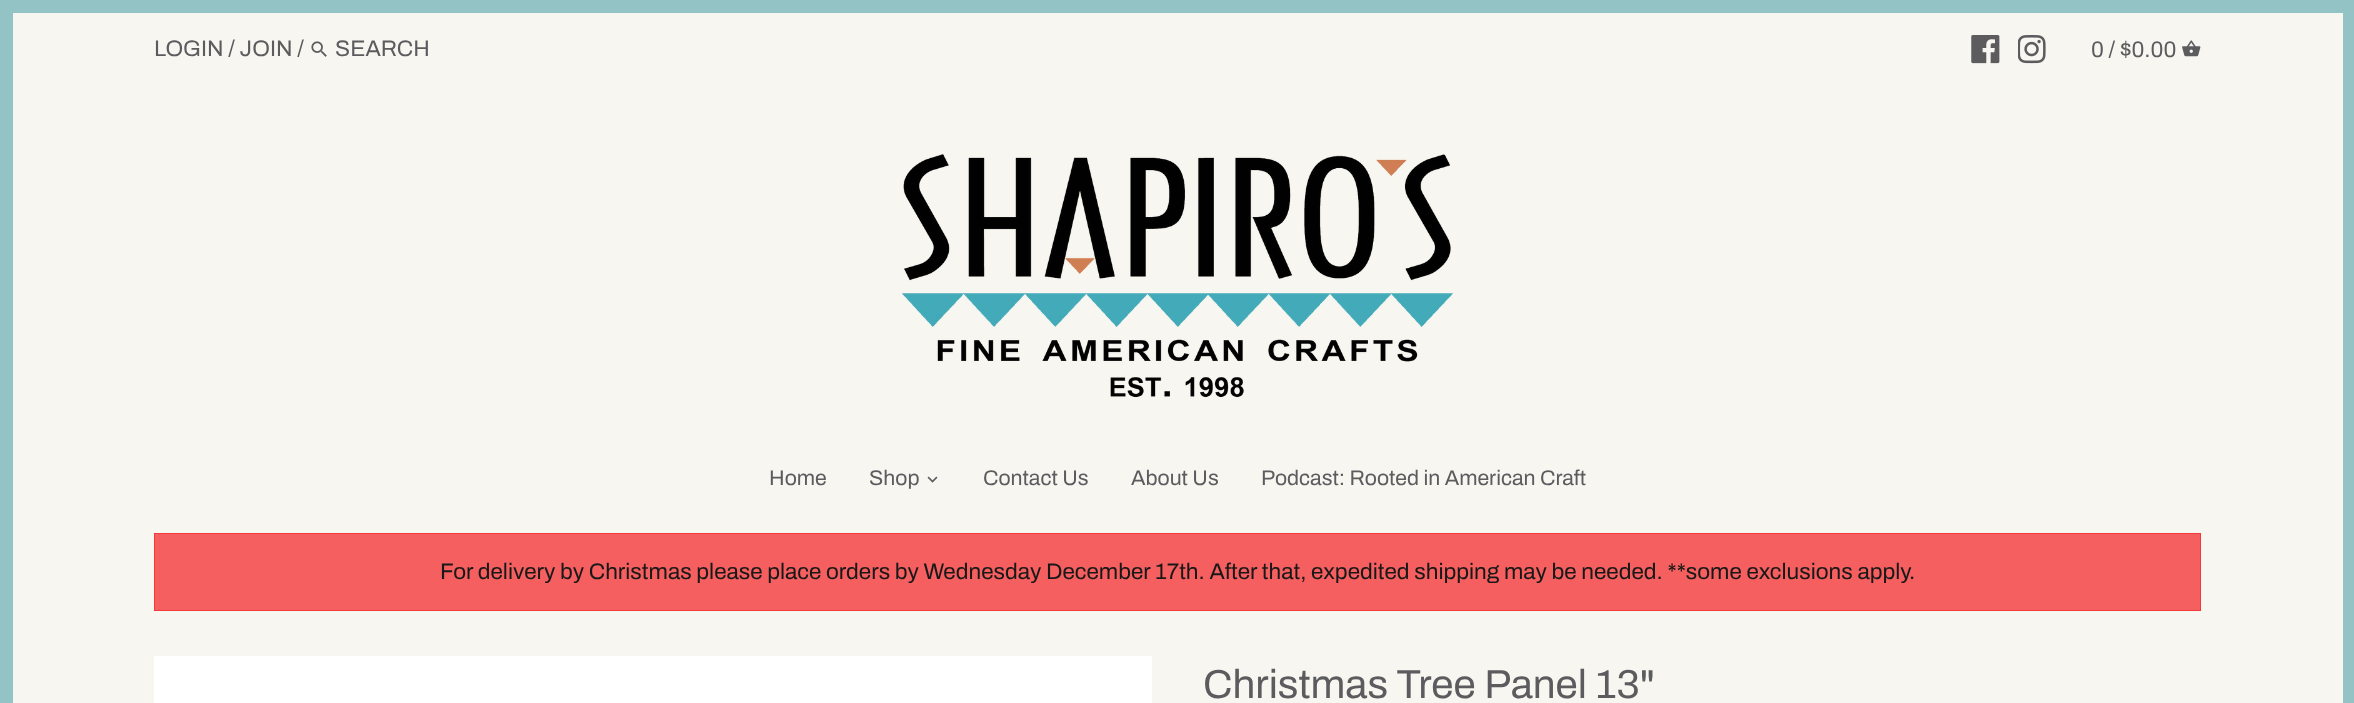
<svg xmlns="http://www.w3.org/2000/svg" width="2354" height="703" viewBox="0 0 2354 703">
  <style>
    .t1 { font: 22.5px Archivo; fill: #5c5c5f; }
    .t2 { font: 21.25px Archivo; fill: #5c5c5f; }
    .t3 { font: 22.5px Archivo; fill: #181818; }
    .t4 { font: 40.5px Archivo; fill: #5c5c5f; }
  </style>
  <rect width="100%" height="100%" fill="#fff"/>
  <rect x="6.5" y="6.5" width="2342" height="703" fill="none" stroke="#93c3c4" stroke-width="13"/>
  <rect x="13" y="13" width="2330" height="690" fill="#f7f6f1"/>
  <text x="154" y="56" class="t1">LOGIN / JOIN /</text>
  <image x="311" y="41" width="16" height="16" href="images/1.png"/>
  <text x="335" y="56" class="t1">SEARCH</text>
  <image x="1971" y="35" width="29" height="29" href="images/2.png"/>
  <image x="2018" y="35" width="28" height="29" href="images/3.png"/>
  <text x="2091" y="57" class="t1">0 / $0.00</text>
  <image x="2182" y="40" width="19" height="17" href="images/4.png"/>
  <image x="902" y="154" width="551" height="244" href="images/5.png"/>
  <text x="769" y="485" class="t2">Home</text>
  <text x="869" y="485" class="t2">Shop</text>
  <image x="927" y="476" width="11" height="7" href="images/6.png"/>
  <text x="983" y="485" class="t2">Contact Us</text>
  <text x="1131" y="485" class="t2">About Us</text>
  <text x="1261" y="485" class="t2">Podcast: Rooted in American Craft</text>
  <rect x="154.5" y="533.5" width="2046" height="77" fill="#f55f5f" stroke="#f33939"/>
  <text x="440" y="579" class="t3">For delivery by Christmas please place orders by Wednesday December 17th. After that, expedited shipping may be needed. **some exclusions apply.</text>
  <rect x="154" y="656" width="998" height="47" fill="#fff"/>
  <text x="1203" y="698" class="t4">Christmas Tree Panel 13"</text>
</svg>
